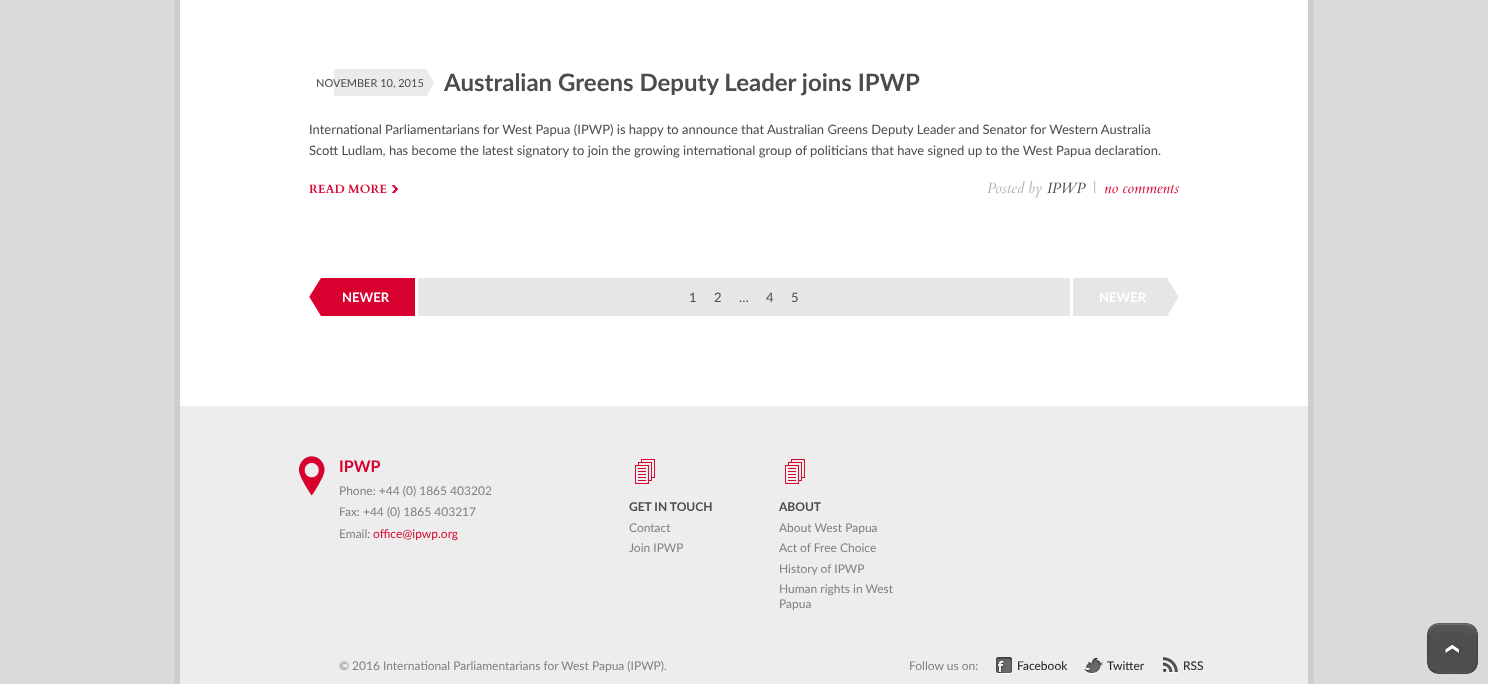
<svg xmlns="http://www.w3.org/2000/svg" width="1488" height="684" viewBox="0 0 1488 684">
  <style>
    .t1 { font: 11px Lato; fill: #4c4c4c; }
    .t2 { font: bold 24px Lato; fill: #4c4c4c; }
    .t3 { font: 13px Lato; fill: #4c4c4c; }
    .t4 { font: bold 12px Cardo; fill: #d80935; }
    .t5 { font: italic 15px Cardo; fill: #b2b2b2; }
    .t6 { font: italic 15px Cardo; fill: #4c4c4c; }
    .t7 { font: italic 15px Cardo; fill: #d7002e; }
    .t8 { font: bold 13px Lato; fill: #fff; }
    .t9 { font: bold 16px Lato; fill: #d7002e; }
    .t10 { font: 12px Lato; fill: #808080; }
    .t11 { font: 12px Lato; fill: #d80935; }
    .t12 { font: bold 12px Lato; fill: #4c4c4c; }
    .t13 { font: 12px Lato; fill: #1a1a1a; }
  </style>
  <rect width="100%" height="100%" fill="#dadada"/>
  <image x="174" y="0" width="1140" height="684" href="images/1.png"/>
  <image x="334" y="69" width="100" height="27" href="images/2.png"/>
  <text x="316" y="87" class="t1">NOVEMBER 10, 2015</text>
  <text x="444" y="91" class="t2">Australian Greens Deputy Leader joins IPWP</text>
  <text x="309" y="134" class="t3">International Parliamentarians for West Papua (IPWP) is happy to announce that Australian Greens Deputy Leader and Senator for Western Australia</text>
  <text x="309" y="155" class="t3">Scott Ludlam, has become the latest signatory to join the growing international group of politicians that have signed up to the West Papua declaration.</text>
  <text x="309" y="193" class="t4">READ MORE</text>
  <image x="391" y="185" width="8" height="8" href="images/3.png"/>
  <text x="987" y="193" class="t5">Posted by</text>
  <text x="1047" y="193" class="t6">IPWP</text>
  <text x="1092" y="193" class="t5">|</text>
  <text x="1104" y="193" class="t7">no comments</text>
  <rect x="418" y="278" width="652" height="38" fill="#e6e6e6"/>
  <image x="309" y="278" width="106" height="38" href="images/4.png"/>
  <text x="342" y="302" class="t8">NEWER</text>
  <text x="689" y="302" class="t3">1</text>
  <text x="714" y="302" class="t3">2</text>
  <text x="739" y="302" class="t3">…</text>
  <text x="766" y="302" class="t3">4</text>
  <text x="791" y="302" class="t3">5</text>
  <image x="1073" y="278" width="106" height="38" href="images/5.png"/>
  <text x="1099" y="302" class="t8">NEWER</text>
  <rect x="180" y="406" width="1128" height="278" fill="#ededed"/>
  <image x="299" y="456" width="26" height="40" href="images/6.png"/>
  <text x="339" y="472" class="t9">IPWP</text>
  <text x="339" y="495" class="t10">Phone: +44 (0) 1865 403202</text>
  <text x="339" y="516" class="t10">Fax: +44 (0) 1865 403217</text>
  <text x="339" y="538" class="t10">Email:</text>
  <text x="373" y="538" class="t11">office@ipwp.org</text>
  <image x="635" y="459" width="20" height="25" href="images/7.png"/>
  <text x="629" y="511" class="t12">GET IN TOUCH</text>
  <text x="629" y="532" class="t10">Contact</text>
  <text x="629" y="552" class="t10">Join IPWP</text>
  <image x="785" y="459" width="20" height="25" href="images/7.png"/>
  <text x="779" y="511" class="t12">ABOUT</text>
  <text x="779" y="532" class="t10">About West Papua</text>
  <text x="779" y="552" class="t10">Act of Free Choice</text>
  <text x="779" y="573" class="t10">History of IPWP</text>
  <text x="779" y="593" class="t10">Human rights in West</text>
  <text x="779" y="608" class="t10">Papua</text>
  <text x="339" y="670" class="t10">© 2016 International Parliamentarians for West Papua (IPWP).</text>
  <text x="909" y="670" class="t10">Follow us on:</text>
  <image x="996" y="657" width="16" height="17" href="images/8.png"/>
  <text x="1017" y="670" class="t13">Facebook</text>
  <image x="1084" y="657" width="19" height="17" href="images/9.png"/>
  <text x="1107" y="670" class="t13">Twitter</text>
  <image x="1163" y="657" width="15" height="16" href="images/10.png"/>
  <text x="1183" y="670" class="t13">RSS</text>
  <image x="1427" y="623" width="51" height="51" href="images/11.png"/>
</svg>
